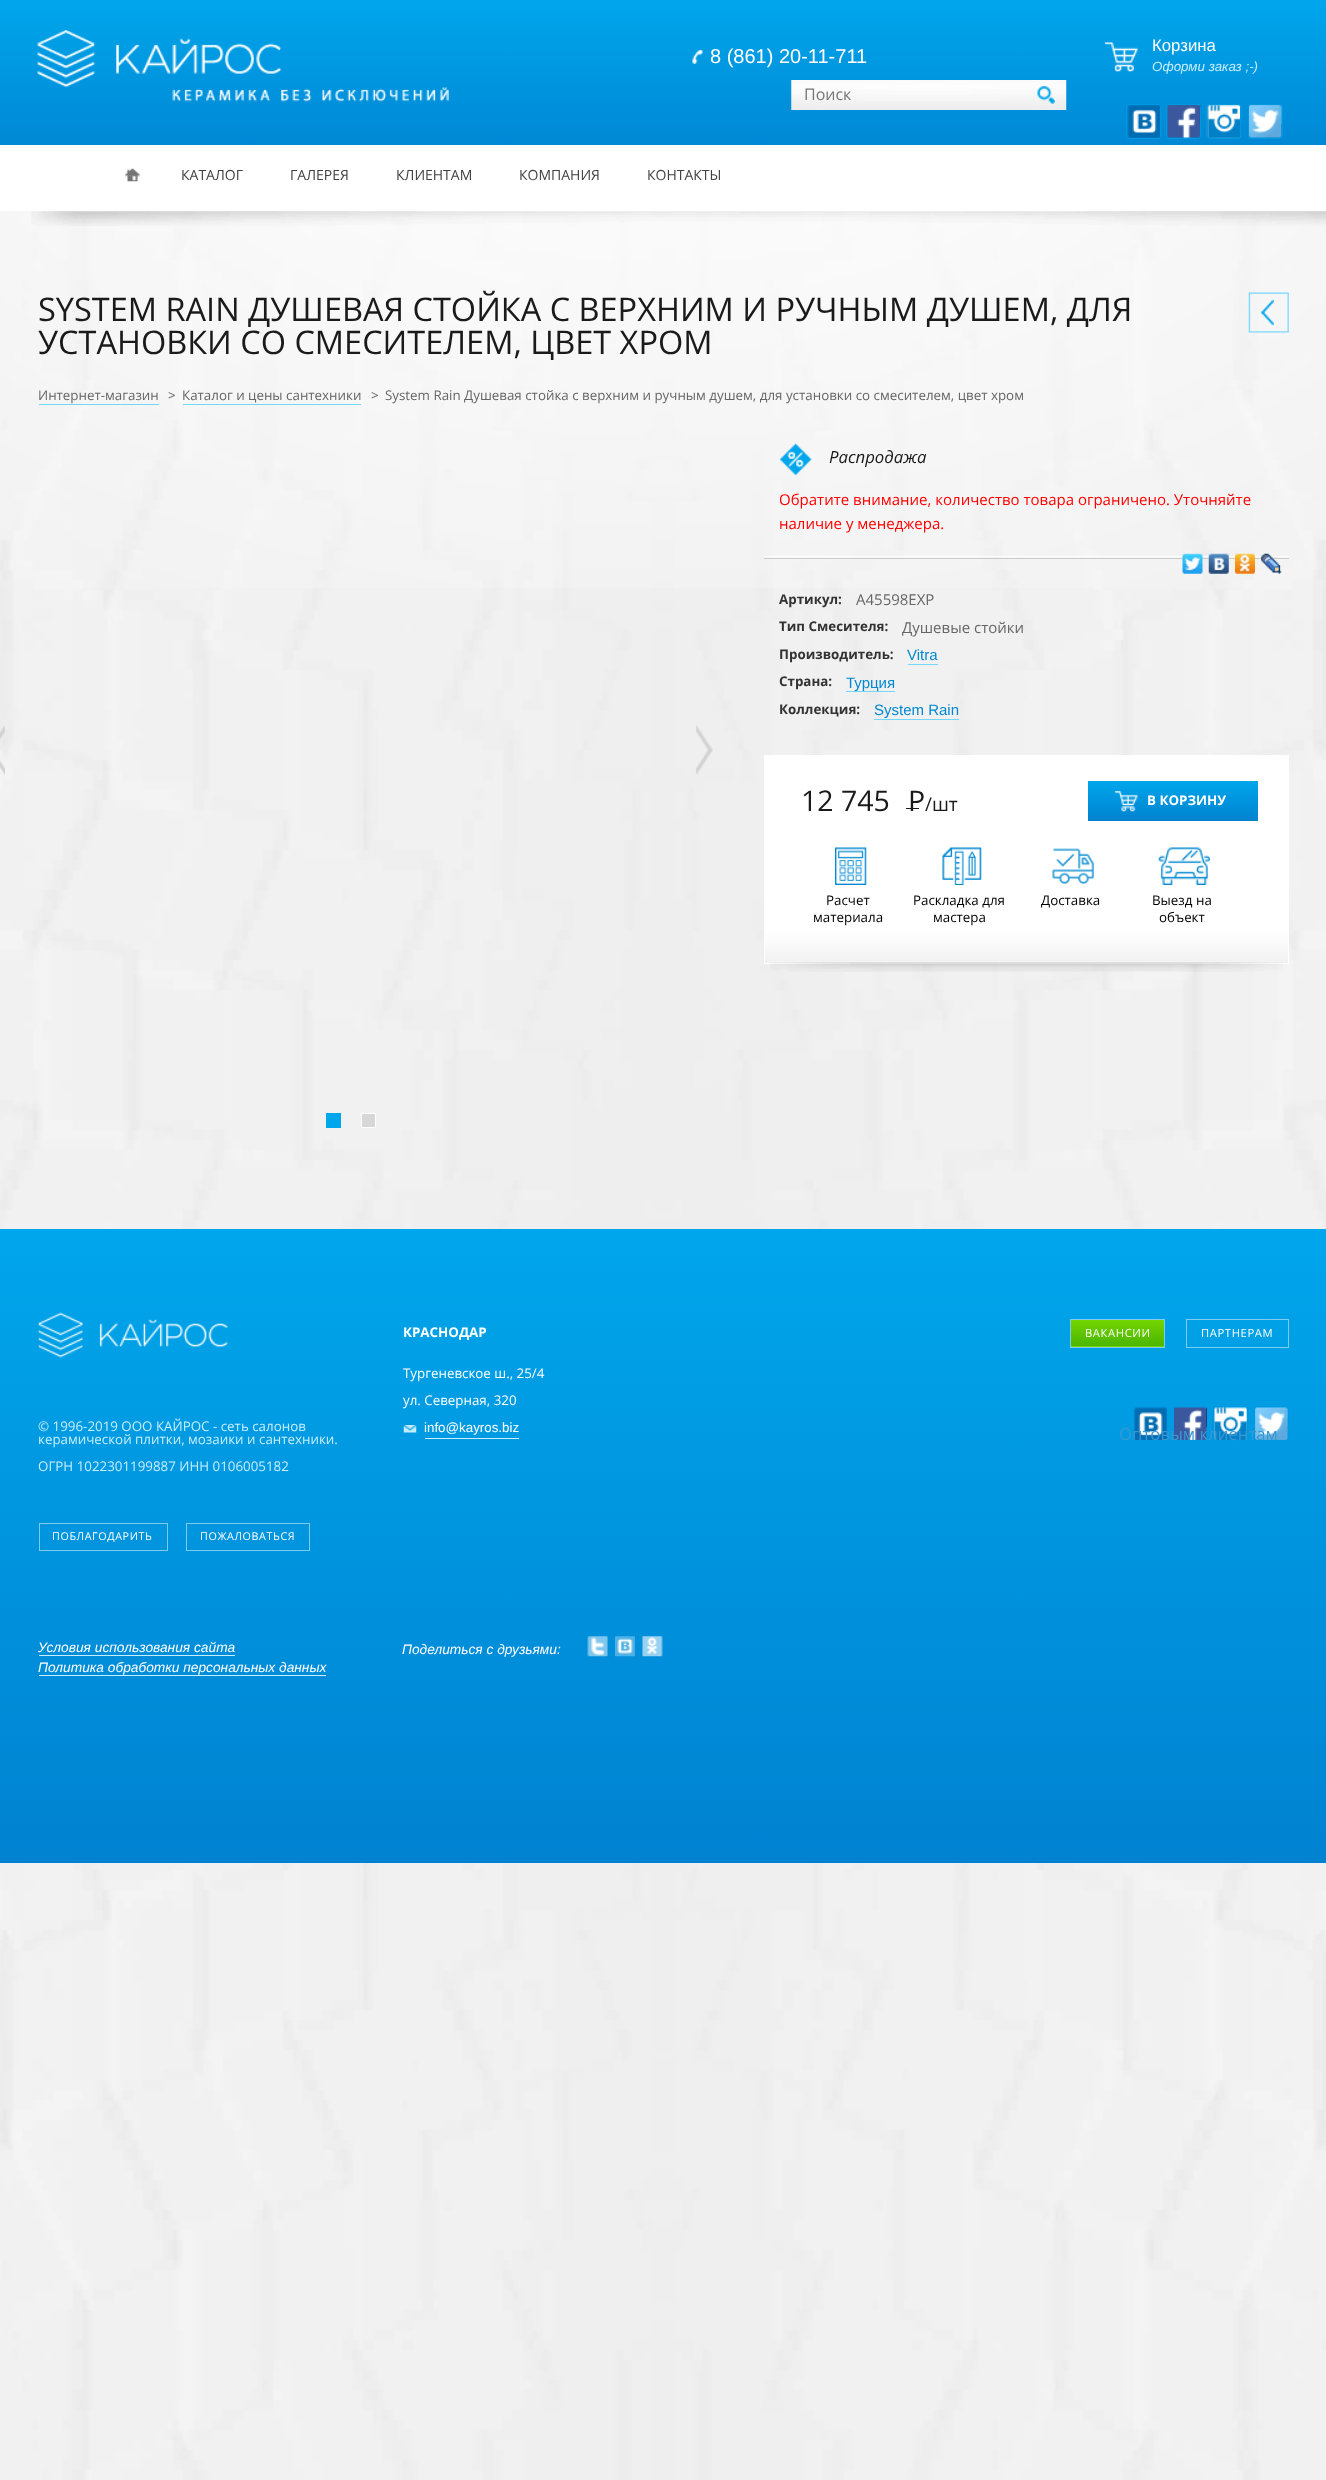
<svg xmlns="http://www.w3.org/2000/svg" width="1326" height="2480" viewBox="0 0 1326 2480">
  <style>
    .t1 { font: 20px Liberation Sans; fill: #fff; }
    .t2 { font: 16.75px Liberation Sans; fill: #fff; }
    .t3 { font: italic 13.35px Liberation Sans; fill: #c5eeff; }
    .t4 { font: 16px Open Sans; fill: #757575; }
    .t5 { font: 14px Open Sans; fill: #404040; }
    .t6 { font: 32.5px Open Sans; fill: #1a1a1a; }
    .t7 { font: 13.35px Open Sans; fill: #666; }
    .t8 { font: italic 16.75px Open Sans; fill: #1a1a1a; }
    .t9 { font: 15px Open Sans; fill: #f00; }
    .t10 { font: bold 13.35px Open Sans; fill: #333; }
    .t11 { font: 15px Open Sans; fill: #666; }
    .t12 { font: 15px Liberation Sans; fill: #0088d0; }
    .t13 { font: 28.5px Open Sans; fill: #1a1a1a; }
    .t14 { font: 19px Open Sans; fill: #1a1a1a; }
    .t15 { font: bold 13.35px Open Sans; fill: #fff; }
    .t16 { font: 13.35px Open Sans; fill: #000; }
    .t17 { font: 13.35px Open Sans; fill: #fff; }
    .t18 { font: 13.35px Liberation Sans; fill: #fff; }
    .t19 { font: 11.25px Open Sans; letter-spacing: 0.6px; fill: #fff; }
    .t20 { font: 16.75px Open Sans; fill: #3b97d1; }
    .t21 { font: 13.35px Open Sans; fill: #c5eeff; }
    .t22 { font: 10.75px Open Sans; letter-spacing: 0.6px; fill: #fff; }
    .t23 { font: italic 13.75px Liberation Sans; fill: #fff; }
  </style>
  <defs>
    <linearGradient id="g1" gradientUnits="userSpaceOnUse" x1="664" y1="0" x2="664" y2="145"><stop offset="0" stop-color="#00a6eb"/><stop offset="1" stop-color="#0088d5"/></linearGradient>
    <linearGradient id="g2" gradientUnits="userSpaceOnUse" x1="1026" y1="756" x2="1026" y2="963"><stop offset="0" stop-color="#fff"/><stop offset="0.85" stop-color="#fff"/><stop offset="1" stop-color="#f1f1f1"/></linearGradient>
    <linearGradient id="g3" gradientUnits="userSpaceOnUse" x1="1173" y1="781" x2="1173" y2="821"><stop offset="0" stop-color="#00a6eb"/><stop offset="1" stop-color="#0082d0"/></linearGradient>
    <linearGradient id="g4" gradientUnits="userSpaceOnUse" x1="663" y1="1229" x2="663" y2="1863"><stop offset="0" stop-color="#00a6eb"/><stop offset="1" stop-color="#0082d1"/></linearGradient>
    <linearGradient id="g5" gradientUnits="userSpaceOnUse" x1="1118" y1="1320" x2="1118" y2="1346"><stop offset="0" stop-color="#74d500"/><stop offset="1" stop-color="#4bb600"/></linearGradient>
    <linearGradient id="g6" gradientUnits="userSpaceOnUse" x1="1118" y1="1346" x2="1118" y2="1373"><stop offset="0" stop-color="#74d500"/><stop offset="1" stop-color="#4bb600"/></linearGradient>
  </defs>
  <rect width="100%" height="100%" fill="#fff"/>
  <image x="0" y="211" width="1326" height="2269" href="images/1.png"/>
  <rect x="0" y="0" width="1326" height="145" fill="url(#g1)"/>
  <image x="37" y="30" width="412" height="72" href="images/2.png"/>
  <image x="692" y="50" width="11" height="14" href="images/3.png"/>
  <text x="710" y="63" class="t1">8 (861) 20-11-711</text>
  <image x="1105" y="42" width="33" height="30" href="images/4.png"/>
  <text x="1152" y="51" class="t2">Корзина</text>
  <text x="1152" y="71" class="t3">Оформи заказ ;-)</text>
  <image x="791" y="80" width="276" height="30" href="images/5.png"/>
  <text x="804" y="100" class="t4">Поиск</text>
  <image x="1037" y="86" width="18" height="18" href="images/6.png"/>
  <image x="1127" y="105" width="34" height="34" href="images/7.png"/>
  <rect x="1126.5" y="104.5" width="34" height="34" rx="2" fill="none" stroke="#0098e1"/>
  <image x="1166" y="104" width="36" height="34" href="images/8.png"/>
  <rect x="1166.5" y="104.5" width="34" height="34" rx="2" fill="none" stroke="#0098e1"/>
  <image x="1206" y="105" width="36" height="34" href="images/9.png"/>
  <rect x="1206.5" y="104.5" width="34" height="34" rx="2" fill="none" stroke="#0098e1"/>
  <image x="1247" y="104" width="36" height="34" href="images/10.png"/>
  <rect x="1248.5" y="104.5" width="34" height="34" rx="2" fill="none" stroke="#0098e1"/>
  <image x="125" y="168" width="15" height="14" href="images/11.png"/>
  <text x="181" y="180" class="t5">КАТАЛОГ</text>
  <text x="290" y="180" class="t5">ГАЛЕРЕЯ</text>
  <text x="396" y="180" class="t5">КЛИЕНТАМ</text>
  <text x="519" y="180" class="t5">КОМПАНИЯ</text>
  <text x="647" y="180" class="t5">КОНТАКТЫ</text>
  <image x="0" y="211" width="1326" height="377" href="images/36.png"/>
  <image x="31" y="211" width="1295" height="15" href="images/12.png"/>
  <text x="38" y="321" class="t6">SYSTEM RAIN ДУШЕВАЯ СТОЙКА С ВЕРХНИМ И РУЧНЫМ ДУШЕМ, ДЛЯ</text>
  <text x="38" y="354" class="t6">УСТАНОВКИ СО СМЕСИТЕЛЕМ, ЦВЕТ ХРОМ</text>
  <image x="1248" y="292" width="41" height="41" href="images/13.png"/>
  <text x="38" y="400" class="t7">Интернет-магазин</text>
  <rect x="39" y="404" width="120" height="1" fill="#73d6ff"/>
  <text x="168" y="400" class="t7">&gt;</text>
  <text x="182" y="400" class="t7">Каталог и цены сантехники</text>
  <rect x="183" y="404" width="178" height="1" fill="#73d6ff"/>
  <text x="371" y="400" class="t7">&gt;</text>
  <text x="385" y="400" class="t7">System Rain Душевая стойка с верхним и ручным душем, для установки со смесителем, цвет хром</text>
  <image x="0" y="725" width="5" height="50" href="images/14.png"/>
  <image x="696" y="725" width="17" height="50" href="images/15.png"/>
  <rect x="326" y="1113" width="15" height="15" fill="#00a6eb"/>
  <rect x="361.5" y="1113.5" width="14" height="14" fill="#d7d7d7" stroke="#fff"/>
  <image x="780" y="443" width="32" height="32" href="images/16.png"/>
  <text x="829" y="463" class="t8">Распродажа</text>
  <text x="779" y="505" class="t9">Обратите внимание, количество товара ограничено. Уточняйте</text>
  <text x="779" y="529" class="t9">наличие у менеджера.</text>
  <rect x="764" y="556" width="525" height="1" fill="#fff"/>
  <rect x="764" y="558" width="525" height="1" fill="#ccc"/>
  <image x="1182" y="553" width="21" height="21" href="images/17.png"/>
  <image x="1208" y="553" width="21" height="21" href="images/18.png"/>
  <image x="1235" y="553" width="20" height="21" href="images/19.png"/>
  <image x="1261" y="553" width="21" height="21" href="images/20.png"/>
  <text x="779" y="604" class="t10">Артикул:</text>
  <text x="856" y="605" class="t11">A45598EXP</text>
  <text x="779" y="631" class="t10">Тип Смесителя:</text>
  <text x="902" y="633" class="t11">Душевые стойки</text>
  <text x="779" y="659" class="t10">Производитель:</text>
  <text x="907" y="660" class="t12">Vitra</text>
  <rect x="908" y="664" width="30" height="1" fill="#73d6ff"/>
  <text x="779" y="686" class="t10">Страна:</text>
  <rect x="846" y="691" width="49" height="1" fill="#73d6ff"/>
  <text x="846" y="688" class="t12">Турция</text>
  <text x="779" y="714" class="t10">Коллекция:</text>
  <text x="874" y="715" class="t12">System Rain</text>
  <rect x="874" y="719" width="85" height="1" fill="#73d6ff"/>
  <rect x="765" y="756" width="523" height="207" fill="url(#g2)"/>
  <rect x="764.5" y="755.5" width="524" height="208" fill="none" stroke="#fff"/>
  <text x="801" y="811" class="t13">12 745</text>
  <text x="908" y="811" class="t13">Р</text>
  <rect x="906" y="808" width="13" height="1" fill="#1a1a1a"/>
  <text x="925" y="811" class="t14">/шт</text>
  <rect x="1088" y="781" width="170" height="40" fill="url(#g3)"/>
  <image x="1115" y="791" width="23" height="21" href="images/21.png"/>
  <text x="1147" y="805" class="t15">В КОРЗИНУ</text>
  <image x="835" y="847" width="32" height="38" href="images/22.png"/>
  <text x="826" y="905" class="t16">Расчет</text>
  <text x="813" y="922" class="t16">материала</text>
  <image x="942" y="847" width="40" height="38" href="images/23.png"/>
  <text x="913" y="905" class="t16">Раскладка для</text>
  <text x="933" y="922" class="t16">мастера</text>
  <image x="1052" y="848" width="42" height="36" href="images/24.png"/>
  <text x="1041" y="905" class="t16">Доставка</text>
  <image x="1158" y="847" width="52" height="38" href="images/25.png"/>
  <text x="1152" y="905" class="t16">Выезд на</text>
  <text x="1159" y="922" class="t16">объект</text>
  <image x="770" y="962" width="513" height="10" href="images/26.png"/>
  <rect x="0" y="1229" width="1326" height="634" fill="url(#g4)"/>
  <text x="403" y="1337" class="t15">КРАСНОДАР</text>
  <text x="403" y="1378" class="t17">Тургеневское ш., 25/4</text>
  <text x="403" y="1405" class="t17">ул. Северная, 320</text>
  <image x="403" y="1425" width="14" height="8" href="images/27.png"/>
  <text x="424" y="1432" class="t18">info@kayros.biz</text>
  <rect x="425" y="1438" width="94" height="1" fill="#c5eeff"/>
  <rect x="1071" y="1320" width="93" height="26" fill="url(#g5)"/>
  <rect x="1070" y="1346" width="95" height="1" fill="url(#g6)"/>
  <rect x="1070.5" y="1319.5" width="94" height="28" fill="none" stroke="#7fcbf0"/>
  <text x="1085" y="1337" class="t19">ВАКАНСИИ</text>
  <rect x="1186.5" y="1319.5" width="102" height="28" fill="none" stroke="#7fcbf0"/>
  <text x="1201" y="1337" class="t19">ПАРТНЕРАМ</text>
  <image x="1133" y="1407" width="35" height="34" href="images/28.png"/>
  <rect x="1133.5" y="1406.5" width="34" height="34" rx="2" fill="none" stroke="#0098e1"/>
  <image x="1173" y="1407" width="35" height="34" href="images/29.png"/>
  <rect x="1173.5" y="1406.5" width="34" height="34" rx="2" fill="none" stroke="#0098e1"/>
  <image x="1212" y="1407" width="36" height="34" href="images/30.png"/>
  <rect x="1213.5" y="1406.5" width="34" height="34" rx="2" fill="none" stroke="#0098e1"/>
  <image x="1253" y="1407" width="36" height="34" href="images/31.png"/>
  <rect x="1254.5" y="1406.5" width="34" height="34" rx="2" fill="none" stroke="#0098e1"/>
  <text x="1119" y="1440" class="t20">Оптовым клиентам</text>
  <image x="38" y="1312" width="190" height="46" href="images/32.png"/>
  <text x="38" y="1431" class="t21">© 1996-2019 ООО КАЙРОС - сеть салонов</text>
  <text x="38" y="1444" class="t21">керамической плитки, мозаики и сантехники.</text>
  <text x="38" y="1471" class="t21">ОГРН 1022301199887 ИНН 0106005182</text>
  <rect x="39.5" y="1523.5" width="128" height="27" fill="none" stroke="#7fcbf0"/>
  <text x="52" y="1540" class="t22">ПОБЛАГОДАРИТЬ</text>
  <rect x="186.5" y="1523.5" width="123" height="27" fill="none" stroke="#7fcbf0"/>
  <text x="200" y="1540" class="t22">ПОЖАЛОВАТЬСЯ</text>
  <text x="38" y="1652" class="t23">Условия использования сайта</text>
  <rect x="39" y="1655" width="196" height="1" fill="#c5eeff"/>
  <text x="38" y="1672" class="t23">Политика обработки персональных данных</text>
  <rect x="39" y="1675" width="287" height="1" fill="#c5eeff"/>
  <text x="402" y="1654" class="t23">Поделиться с друзьями:</text>
  <image x="587" y="1636" width="21" height="21" href="images/33.png"/>
  <image x="615" y="1636" width="20" height="21" href="images/34.png"/>
  <image x="642" y="1636" width="21" height="21" href="images/35.png"/>
</svg>
